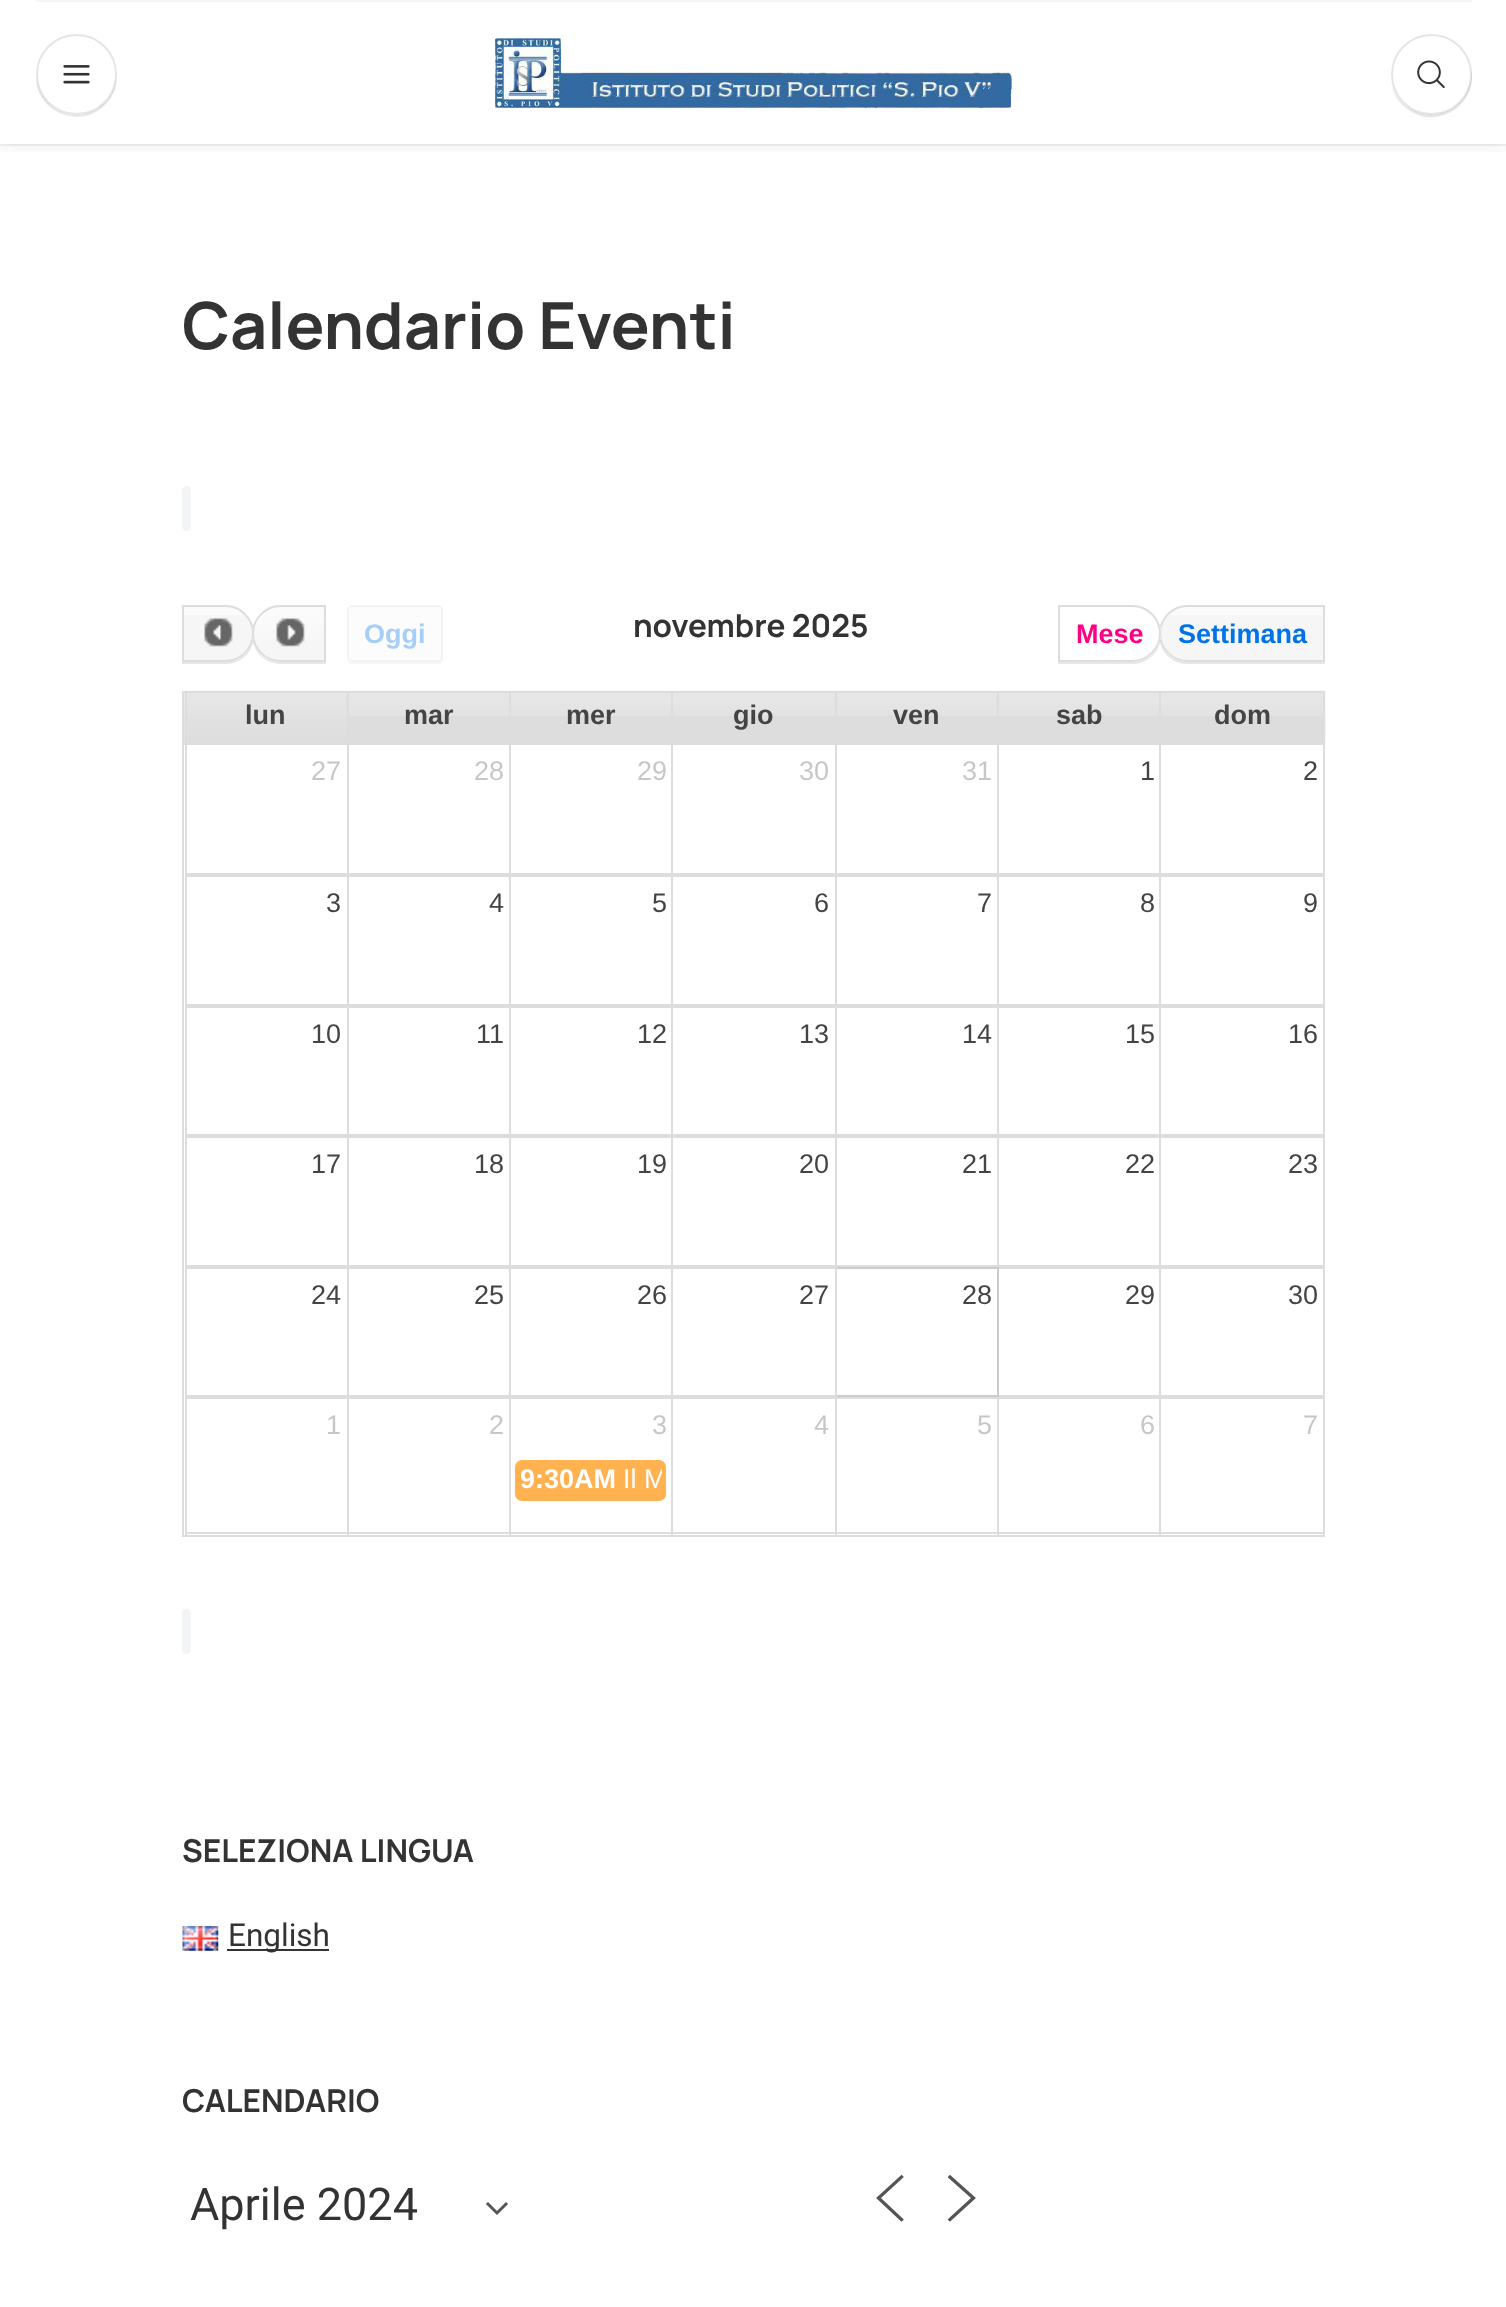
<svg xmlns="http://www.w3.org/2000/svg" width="1506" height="2307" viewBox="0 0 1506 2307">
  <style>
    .t1 { font: bold 64.9px Manrope; fill: #333; }
    .t2 { font: bold 27px Liberation Sans; fill: #a6cef8; }
    .t3 { font: bold 31.5px Manrope; fill: #333; }
    .t4 { font: bold 27px Liberation Sans; fill: #ff0084; }
    .t5 { font: bold 27px Liberation Sans; fill: #0073ea; }
    .t6 { font: bold 27px Liberation Sans; fill: #444; }
    .t7 { font: 27px Liberation Sans; fill: #c7c7c7; }
    .t8 { font: 27px Liberation Sans; fill: #444; }
    .t9 { font: bold 27px Liberation Sans; fill: #fff; }
    .t10 { font: 27px Liberation Sans; fill: #fff; }
    .t11 { font: 31.5px Roboto; fill: #333; }
    .t12 { font: 45px Roboto; fill: #333; }
  </style>
  <defs>
    <clipPath id="clip1"><rect x="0" y="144" width="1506" height="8"/></clipPath>
    <clipPath id="clip2"><rect x="520" y="1463" width="142" height="36"/></clipPath>
  </defs>
  <rect width="100%" height="100%" fill="#fff"/>
  <g clip-path="url(#clip1)">
    <rect x="0" y="0" width="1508" height="144" fill="#11111a1a" filter="blur(9px)"/>
  </g>
  <path d="M0 144V146H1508V2V144Z" fill="#11111a0d"/>
  <rect x="36" y="0" width="1436" height="2" fill="#f5f5f5"/>
  <path d="M36 75C35 116 88 132 110 99C115 92 117 84 117 75C116 97 98 115 76 115C55 115 37 97 36 75Z" fill="#e7e7e8"/>
  <circle cx="76.5" cy="74.5" r="39.5" fill="none" stroke="#0000001a" stroke-width="2"/>
  <image x="63" y="65" width="27" height="19" href="images/1.png"/>
  <image x="495" y="38" width="517" height="70" href="images/2.png"/>
  <path d="M1392 84C1393 93 1398 102 1406 108C1436 133 1480 104 1471 67C1472 74 1471 83 1468 90C1453 126 1401 121 1392 84Z" fill="#e7e7e8"/>
  <circle cx="1431.5" cy="74.5" r="39.5" fill="none" stroke="#0000001a" stroke-width="2"/>
  <image x="1417" y="60" width="28" height="29" href="images/3.png"/>
  <text x="182" y="349" class="t1">Calendario Eventi</text>
  <rect x="182" y="486" width="9" height="45" rx="4.5" fill="#f3f4f5"/>
  <path d="M182 608V664H226C241 664 253 652 254 637C252 649 243 659 231 661L219 662L182 661Z" fill="#e7e7e8"/>
  <path d="M182 605H225.5C241 605 254 618 254 633.5C254 649 241 662 225.5 662H182Z" fill="#f6f6f6"/>
  <image x="184" y="606" width="62" height="9" href="images/4.png"/>
  <path d="M183 606H225.5C240.5 606 253 618.5 253 633.5C253 648.5 240.5 661 225.5 661H183Z" fill="none" stroke="#ddd" stroke-width="2"/>
  <image x="204" y="618" width="29" height="29" href="images/5.png"/>
  <path d="M252 635V636C252 651 265 664 280 664H326V662H280C265 662 253 650 252 635Z" fill="#e7e7e8"/>
  <path d="M280.5 605H326V662H280.5C265 662 252 649 252 633.5C252 618 265 605 280.5 605Z" fill="#f6f6f6"/>
  <image x="252" y="606" width="72" height="34" href="images/6.png"/>
  <path d="M280.5 606H325V661H280.5C265.5 661 253 648.5 253 633.5C253 618.5 265.5 606 280.5 606Z" fill="none" stroke="#ddd" stroke-width="2"/>
  <image x="276" y="618" width="29" height="29" href="images/7.png"/>
  <path d="M347 659C347 662 349 664 352 664H438C441 664 443 662 443 659V658C442 660 441 662 439 662H351C349 662 348 661 347 659Z" fill="#f7f7f7"/>
  <rect x="348" y="606" width="94" height="55" rx="4" fill="#fcfcfc" stroke="#f3f3f3" stroke-width="2"/>
  <text x="364" y="643" class="t2">Oggi</text>
  <text x="633" y="637" class="t3">novembre 2025</text>
  <path d="M1159 637C1160 652 1172 664 1187 664H1325V662H1187C1173 662 1161 651 1159 637Z" fill="#e7e7e8"/>
  <path d="M1187.5 605H1325V662H1187.5C1172 662 1159 649 1159 633.5C1159 618 1172 605 1187.5 605Z" fill="#f6f6f6"/>
  <image x="1167" y="606" width="156" height="9" href="images/9.png"/>
  <path d="M1187.5 606H1324V661H1187.5C1172.5 661 1160 648.5 1160 633.5C1160 618.5 1172.5 606 1187.5 606Z" fill="none" stroke="#ddd" stroke-width="2"/>
  <path d="M1058 662V664H1133C1148 664 1161 651 1161 636V635C1160 650 1148 662 1133 662Z" fill="#11111a1a"/>
  <path d="M1058 605H1132.5C1148 605 1161 618 1161 633.5C1161 649 1148 662 1132.5 662H1058Z" fill="#fff"/>
  <image x="1160" y="627" width="1" height="13" href="images/8.png"/>
  <path d="M1059 606H1132.5C1147.5 606 1160 618.5 1160 633.5C1160 648.5 1147.5 661 1132.5 661H1059Z" fill="none" stroke="#ddd" stroke-width="2"/>
  <text x="1076" y="643" class="t4">Mese</text>
  <text x="1178" y="643" class="t5">Settimana</text>
  <image x="184" y="690" width="1142" height="53" href="images/10.png"/>
  <rect x="182" y="691" width="1143" height="2" fill="#ddd"/>
  <rect x="182" y="743" width="1143" height="2" fill="#ddd"/>
  <rect x="1323" y="743" width="2" height="794" fill="#ddd"/>
  <rect x="1323" y="691" width="2" height="54" fill="#ddd"/>
  <rect x="182" y="1535" width="1143" height="2" fill="#ddd"/>
  <rect x="182" y="743" width="2" height="794" fill="#ddd"/>
  <rect x="182" y="691" width="2" height="54" fill="#ddd"/>
  <image x="184" y="693" width="1" height="50" href="images/11.png"/>
  <rect x="187" y="693" width="160" height="50" fill="#ddd"/>
  <image x="184" y="693" width="163" height="50" href="images/12.png"/>
  <rect x="185" y="691" width="2" height="52" fill="#ddd"/>
  <text x="245" y="724" class="t6">lun</text>
  <rect x="349" y="716" width="160" height="27" fill="#ddd"/>
  <image x="349" y="693" width="160" height="23" href="images/13.png"/>
  <rect x="347" y="691" width="2" height="52" fill="#ddd"/>
  <text x="404" y="724" class="t6">mar</text>
  <rect x="511" y="716" width="160" height="27" fill="#ddd"/>
  <image x="511" y="693" width="160" height="23" href="images/13.png"/>
  <rect x="509" y="691" width="2" height="52" fill="#ddd"/>
  <text x="566" y="724" class="t6">mer</text>
  <rect x="673" y="693" width="162" height="50" fill="#ddd"/>
  <image x="673" y="693" width="162" height="23" href="images/14.png"/>
  <rect x="671" y="691" width="2" height="52" fill="#ddd"/>
  <text x="733" y="724" class="t6">gio</text>
  <rect x="837" y="693" width="160" height="50" fill="#ddd"/>
  <image x="837" y="693" width="160" height="23" href="images/15.png"/>
  <rect x="835" y="691" width="2" height="52" fill="#ddd"/>
  <text x="893" y="724" class="t6">ven</text>
  <rect x="999" y="716" width="160" height="27" fill="#ddd"/>
  <image x="999" y="693" width="160" height="23" href="images/13.png"/>
  <rect x="997" y="691" width="2" height="52" fill="#ddd"/>
  <text x="1056" y="724" class="t6">sab</text>
  <rect x="1161" y="716" width="162" height="27" fill="#ddd"/>
  <image x="1161" y="693" width="162" height="23" href="images/16.png"/>
  <rect x="1159" y="691" width="2" height="52" fill="#ddd"/>
  <text x="1214" y="724" class="t6">dom</text>
  <rect x="1159" y="873" width="164" height="4" fill="#ddd"/>
  <rect x="1159" y="745" width="2" height="130" fill="#ddd"/>
  <rect x="997" y="873" width="164" height="2" fill="#ddd"/>
  <rect x="997" y="745" width="2" height="130" fill="#ddd"/>
  <rect x="835" y="873" width="164" height="2" fill="#ddd"/>
  <rect x="835" y="745" width="2" height="130" fill="#ddd"/>
  <rect x="671" y="873" width="166" height="2" fill="#ddd"/>
  <rect x="671" y="745" width="2" height="130" fill="#ddd"/>
  <rect x="509" y="873" width="164" height="2" fill="#ddd"/>
  <rect x="509" y="745" width="2" height="130" fill="#ddd"/>
  <rect x="347" y="873" width="164" height="2" fill="#ddd"/>
  <rect x="347" y="745" width="2" height="130" fill="#ddd"/>
  <rect x="185" y="873" width="164" height="2" fill="#ddd"/>
  <rect x="185" y="745" width="2" height="130" fill="#ddd"/>
  <text x="311" y="780" class="t7">27</text>
  <text x="474" y="780" class="t7">28</text>
  <text x="637" y="780" class="t7">29</text>
  <text x="799" y="780" class="t7">30</text>
  <text x="962" y="780" class="t7">31</text>
  <text x="1140" y="780" class="t8">1</text>
  <text x="1303" y="780" class="t8">2</text>
  <rect x="1159" y="1004" width="164" height="4" fill="#ddd"/>
  <rect x="1159" y="875" width="2" height="131" fill="#ddd"/>
  <rect x="997" y="875" width="164" height="2" fill="#ddd"/>
  <rect x="997" y="1004" width="164" height="2" fill="#ddd"/>
  <rect x="997" y="875" width="2" height="131" fill="#ddd"/>
  <rect x="835" y="875" width="164" height="2" fill="#ddd"/>
  <rect x="835" y="1004" width="164" height="2" fill="#ddd"/>
  <rect x="835" y="875" width="2" height="131" fill="#ddd"/>
  <rect x="671" y="875" width="166" height="2" fill="#ddd"/>
  <rect x="671" y="1004" width="166" height="2" fill="#ddd"/>
  <rect x="671" y="875" width="2" height="131" fill="#ddd"/>
  <rect x="509" y="875" width="164" height="2" fill="#ddd"/>
  <rect x="509" y="1004" width="164" height="2" fill="#ddd"/>
  <rect x="509" y="875" width="2" height="131" fill="#ddd"/>
  <rect x="347" y="875" width="164" height="2" fill="#ddd"/>
  <rect x="347" y="1004" width="164" height="2" fill="#ddd"/>
  <rect x="347" y="875" width="2" height="131" fill="#ddd"/>
  <rect x="185" y="875" width="164" height="2" fill="#ddd"/>
  <rect x="185" y="1004" width="164" height="2" fill="#ddd"/>
  <rect x="185" y="875" width="2" height="131" fill="#ddd"/>
  <text x="326" y="912" class="t8">3</text>
  <text x="489" y="912" class="t8">4</text>
  <text x="652" y="912" class="t8">5</text>
  <text x="814" y="912" class="t8">6</text>
  <text x="977" y="912" class="t8">7</text>
  <text x="1140" y="912" class="t8">8</text>
  <text x="1303" y="912" class="t8">9</text>
  <rect x="1159" y="1134" width="164" height="4" fill="#ddd"/>
  <rect x="1159" y="1006" width="2" height="130" fill="#ddd"/>
  <rect x="997" y="1006" width="164" height="2" fill="#ddd"/>
  <rect x="997" y="1134" width="164" height="2" fill="#ddd"/>
  <rect x="997" y="1006" width="2" height="130" fill="#ddd"/>
  <rect x="835" y="1006" width="164" height="2" fill="#ddd"/>
  <rect x="835" y="1134" width="164" height="2" fill="#ddd"/>
  <rect x="835" y="1006" width="2" height="130" fill="#ddd"/>
  <rect x="671" y="1006" width="166" height="2" fill="#ddd"/>
  <rect x="671" y="1134" width="166" height="2" fill="#ddd"/>
  <rect x="671" y="1006" width="2" height="130" fill="#ddd"/>
  <rect x="509" y="1006" width="164" height="2" fill="#ddd"/>
  <rect x="509" y="1134" width="164" height="2" fill="#ddd"/>
  <rect x="509" y="1006" width="2" height="130" fill="#ddd"/>
  <rect x="347" y="1006" width="164" height="2" fill="#ddd"/>
  <rect x="347" y="1134" width="164" height="2" fill="#ddd"/>
  <rect x="347" y="1006" width="2" height="130" fill="#ddd"/>
  <rect x="185" y="1006" width="164" height="2" fill="#ddd"/>
  <rect x="185" y="1134" width="164" height="2" fill="#ddd"/>
  <rect x="185" y="1006" width="2" height="130" fill="#ddd"/>
  <text x="311" y="1043" class="t8">10</text>
  <text x="476" y="1043" class="t8">11</text>
  <text x="637" y="1043" class="t8">12</text>
  <text x="799" y="1043" class="t8">13</text>
  <text x="962" y="1043" class="t8">14</text>
  <text x="1125" y="1043" class="t8">15</text>
  <text x="1288" y="1043" class="t8">16</text>
  <rect x="1159" y="1265" width="164" height="4" fill="#ddd"/>
  <rect x="1159" y="1136" width="2" height="131" fill="#ddd"/>
  <rect x="997" y="1136" width="164" height="2" fill="#ddd"/>
  <rect x="997" y="1265" width="164" height="2" fill="#ddd"/>
  <rect x="997" y="1136" width="2" height="131" fill="#ddd"/>
  <rect x="835" y="1136" width="164" height="2" fill="#ddd"/>
  <rect x="835" y="1265" width="164" height="2" fill="#ddd"/>
  <rect x="835" y="1136" width="2" height="131" fill="#ddd"/>
  <rect x="671" y="1136" width="166" height="2" fill="#ddd"/>
  <rect x="671" y="1265" width="166" height="2" fill="#ddd"/>
  <rect x="671" y="1136" width="2" height="131" fill="#ddd"/>
  <rect x="509" y="1136" width="164" height="2" fill="#ddd"/>
  <rect x="509" y="1265" width="164" height="2" fill="#ddd"/>
  <rect x="509" y="1136" width="2" height="131" fill="#ddd"/>
  <rect x="347" y="1136" width="164" height="2" fill="#ddd"/>
  <rect x="347" y="1265" width="164" height="2" fill="#ddd"/>
  <rect x="347" y="1136" width="2" height="131" fill="#ddd"/>
  <rect x="185" y="1136" width="164" height="2" fill="#ddd"/>
  <rect x="185" y="1265" width="164" height="2" fill="#ddd"/>
  <rect x="185" y="1136" width="2" height="131" fill="#ddd"/>
  <text x="311" y="1173" class="t8">17</text>
  <text x="474" y="1173" class="t8">18</text>
  <text x="637" y="1173" class="t8">19</text>
  <text x="799" y="1173" class="t8">20</text>
  <text x="962" y="1173" class="t8">21</text>
  <text x="1125" y="1173" class="t8">22</text>
  <text x="1288" y="1173" class="t8">23</text>
  <rect x="1159" y="1395" width="164" height="4" fill="#ddd"/>
  <rect x="1159" y="1267" width="2" height="130" fill="#ddd"/>
  <rect x="997" y="1267" width="164" height="2" fill="#ddd"/>
  <rect x="835" y="1267" width="164" height="2" fill="#ccc"/>
  <rect x="671" y="1267" width="166" height="2" fill="#ddd"/>
  <rect x="997" y="1395" width="164" height="2" fill="#ddd"/>
  <rect x="997" y="1267" width="2" height="130" fill="#ccc"/>
  <rect x="835" y="1395" width="164" height="2" fill="#ccc"/>
  <rect x="835" y="1267" width="2" height="130" fill="#ddd"/>
  <rect x="671" y="1395" width="166" height="2" fill="#ddd"/>
  <rect x="671" y="1267" width="2" height="130" fill="#ddd"/>
  <rect x="509" y="1267" width="164" height="2" fill="#ddd"/>
  <rect x="509" y="1395" width="164" height="2" fill="#ddd"/>
  <rect x="509" y="1267" width="2" height="130" fill="#ddd"/>
  <rect x="347" y="1267" width="164" height="2" fill="#ddd"/>
  <rect x="347" y="1395" width="164" height="2" fill="#ddd"/>
  <rect x="347" y="1267" width="2" height="130" fill="#ddd"/>
  <rect x="185" y="1267" width="164" height="2" fill="#ddd"/>
  <rect x="185" y="1395" width="164" height="2" fill="#ddd"/>
  <rect x="185" y="1267" width="2" height="130" fill="#ddd"/>
  <text x="311" y="1304" class="t8">24</text>
  <text x="474" y="1304" class="t8">25</text>
  <text x="637" y="1304" class="t8">26</text>
  <text x="799" y="1304" class="t8">27</text>
  <text x="962" y="1304" class="t8">28</text>
  <text x="1125" y="1304" class="t8">29</text>
  <text x="1288" y="1304" class="t8">30</text>
  <rect x="1159" y="1532" width="164" height="2" fill="#ddd"/>
  <rect x="1159" y="1397" width="2" height="138" fill="#ddd"/>
  <rect x="997" y="1397" width="164" height="2" fill="#ddd"/>
  <rect x="997" y="1532" width="164" height="2" fill="#ddd"/>
  <rect x="997" y="1397" width="2" height="138" fill="#ddd"/>
  <rect x="835" y="1397" width="164" height="2" fill="#ddd"/>
  <rect x="835" y="1532" width="164" height="2" fill="#ddd"/>
  <rect x="835" y="1397" width="2" height="138" fill="#ddd"/>
  <rect x="671" y="1397" width="166" height="2" fill="#ddd"/>
  <rect x="671" y="1532" width="166" height="2" fill="#ddd"/>
  <rect x="671" y="1397" width="2" height="138" fill="#ddd"/>
  <rect x="509" y="1397" width="164" height="2" fill="#ddd"/>
  <rect x="509" y="1532" width="164" height="2" fill="#ddd"/>
  <rect x="509" y="1397" width="2" height="138" fill="#ddd"/>
  <rect x="347" y="1397" width="164" height="2" fill="#ddd"/>
  <rect x="347" y="1532" width="164" height="2" fill="#ddd"/>
  <rect x="347" y="1397" width="2" height="138" fill="#ddd"/>
  <rect x="185" y="1397" width="164" height="2" fill="#ddd"/>
  <rect x="185" y="1532" width="164" height="2" fill="#ddd"/>
  <rect x="185" y="1397" width="2" height="138" fill="#ddd"/>
  <text x="326" y="1434" class="t7">1</text>
  <text x="489" y="1434" class="t7">2</text>
  <text x="652" y="1434" class="t7">3</text>
  <text x="814" y="1434" class="t7">4</text>
  <text x="977" y="1434" class="t7">5</text>
  <text x="1140" y="1434" class="t7">6</text>
  <text x="1303" y="1434" class="t7">7</text>
  <rect x="516" y="1461" width="149" height="39" rx="6" fill="#ffb24f" stroke="#ffb24f" stroke-width="2"/>
  <text x="520" y="1488" class="t9">9:30AM</text>
  <g clip-path="url(#clip2)">
    <text x="623" y="1488" class="t10">Il M</text>
  </g>
  <rect x="182" y="1609" width="9" height="45" rx="4.5" fill="#f3f4f5"/>
  <text x="182" y="1862" class="t3">SELEZIONA LINGUA</text>
  <image x="182" y="1926" width="37" height="25" href="images/17.png"/>
  <rect x="227" y="1949" width="102" height="2" fill="#333"/>
  <text x="228" y="1946" class="t11">English</text>
  <text x="182" y="2112" class="t3">CALENDARIO</text>
  <path d="M488 2204L497 2213L506 2204" fill="none" stroke="#555" stroke-width="3" stroke-linecap="square"/>
  <text x="190" y="2220" class="t12">Aprile 2024</text>
  <path d="M901.5 2219.5L878.5 2198L901.5 2177" fill="none" stroke="#555" stroke-width="3.3" stroke-linecap="square"/>
  <path d="M950 2219.5L973.5 2198L950 2177" fill="none" stroke="#555" stroke-width="3.3" stroke-linecap="square"/>
</svg>
